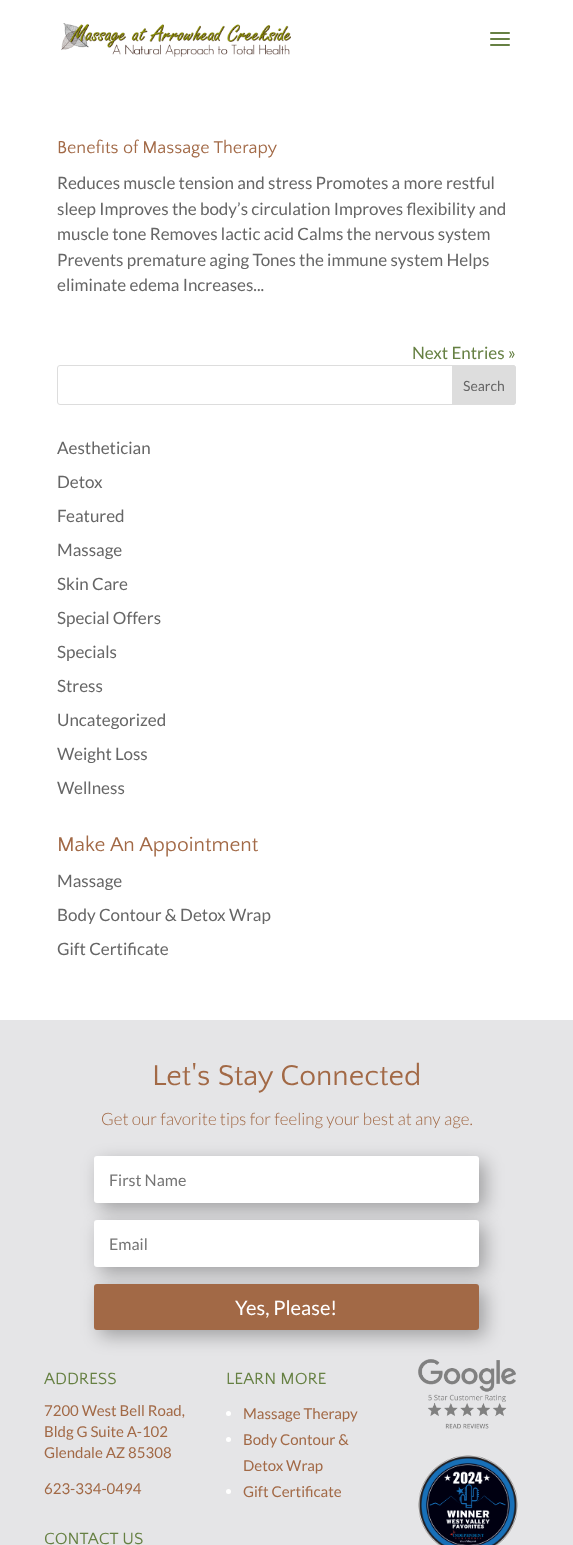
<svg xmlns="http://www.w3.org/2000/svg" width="573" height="1545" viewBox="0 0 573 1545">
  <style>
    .t1 { font: 18px Quattrocento Sans; fill: #a26946; }
    .t2 { font: 17px Lato; fill: #666; }
    .t3 { font: 17px Lato; fill: #668043; }
    .t4 { font: 14px Lato; fill: #666; }
    .t5 { font: 21px Quattrocento Sans; fill: #a26946; }
    .t6 { font: 30px Quattrocento Sans; fill: #a26946; }
    .t7 { font: 300 17px Lato; fill: #a26946; }
    .t8 { font: 16px Lato; fill: #757575; }
    .t9 { font: 20px Lato; fill: #fff; }
    .t10 { font: 17px Quattrocento Sans; fill: #668043; }
    .t11 { font: 15px Lato; fill: #a26946; }
  </style>
  <rect width="100%" height="100%" fill="#fff"/>
  <image x="61" y="23" width="230" height="34" href="images/1.png"/>
  <image x="490" y="32" width="20" height="14" href="images/2.png"/>
  <text x="57" y="153" class="t1">Benefits of Massage Therapy</text>
  <text x="57" y="189" class="t2">Reduces muscle tension and stress Promotes a more restful</text>
  <text x="57" y="215" class="t2">sleep Improves the body’s circulation Improves flexibility and</text>
  <text x="57" y="240" class="t2">muscle tone Removes lactic acid Calms the nervous system</text>
  <text x="57" y="266" class="t2">Prevents premature aging Tones the immune system Helps</text>
  <text x="57" y="291" class="t2">eliminate edema Increases...</text>
  <text x="412" y="359" class="t3">Next Entries »</text>
  <rect x="57.5" y="365.5" width="458" height="39" rx="2.5" fill="none" stroke="#ddd"/>
  <path d="M452.5 365.5H513C514.5 365.5 515.5 366.5 515.5 368V402C515.5 403.5 514.5 404.5 513 404.5H452.5Z" fill="#ddd" stroke="#ddd"/>
  <text x="463" y="391" class="t4">Search</text>
  <text x="57" y="454" class="t2">Aesthetician</text>
  <text x="57" y="488" class="t2">Detox</text>
  <text x="57" y="522" class="t2">Featured</text>
  <text x="57" y="556" class="t2">Massage</text>
  <text x="57" y="590" class="t2">Skin Care</text>
  <text x="57" y="624" class="t2">Special Offers</text>
  <text x="57" y="658" class="t2">Specials</text>
  <text x="57" y="692" class="t2">Stress</text>
  <text x="57" y="726" class="t2">Uncategorized</text>
  <text x="57" y="760" class="t2">Weight Loss</text>
  <text x="57" y="794" class="t2">Wellness</text>
  <text x="57" y="851" class="t5">Make An Appointment</text>
  <text x="57" y="887" class="t2">Massage</text>
  <text x="57" y="921" class="t2">Body Contour &amp; Detox Wrap</text>
  <text x="57" y="955" class="t2">Gift Certificate</text>
  <rect x="0" y="1020" width="573" height="525" fill="#e5e5e7"/>
  <text x="152" y="1085" class="t6">Let's Stay Connected</text>
  <text x="101" y="1125" class="t7">Get our favorite tips for feeling your best at any age.</text>
  <rect x="100" y="1162" width="385" height="47" rx="3" fill="#0000004d" filter="blur(9px)"/>
  <rect x="94" y="1156" width="385" height="47" rx="3" fill="#fff"/>
  <text x="109" y="1186" class="t8">First Name</text>
  <rect x="100" y="1226" width="385" height="47" rx="3" fill="#0000004d" filter="blur(9px)"/>
  <rect x="94" y="1220" width="385" height="47" rx="3" fill="#fff"/>
  <text x="109" y="1250" class="t8">Email</text>
  <rect x="100" y="1290" width="385" height="46" rx="3" fill="#0000004d" filter="blur(9px)"/>
  <rect x="94" y="1284" width="385" height="46" rx="3" fill="#a26946"/>
  <text x="235" y="1315" class="t9">Yes, Please!</text>
  <text x="44" y="1384" class="t10">ADDRESS</text>
  <text x="44" y="1416" class="t11">7200 West Bell Road,</text>
  <text x="44" y="1437" class="t11">Bldg G Suite A-102</text>
  <text x="44" y="1458" class="t11">Glendale AZ 85308</text>
  <text x="44" y="1494" class="t11">623-334-0494</text>
  <text x="44" y="1544" class="t10">CONTACT US</text>
  <text x="226" y="1384" class="t10">LEARN MORE</text>
  <circle cx="228.5" cy="1413.5" r="2.5" fill="#fff"/>
  <text x="243" y="1419" class="t11">Massage Therapy</text>
  <circle cx="228.5" cy="1439.5" r="2.5" fill="#fff"/>
  <text x="243" y="1445" class="t11">Body Contour &amp;</text>
  <text x="243" y="1471" class="t11">Detox Wrap</text>
  <circle cx="228.5" cy="1491.5" r="2.5" fill="#fff"/>
  <text x="243" y="1497" class="t11">Gift Certificate</text>
  <image x="418" y="1359" width="98" height="70" href="images/3.png"/>
  <image x="418" y="1455" width="100" height="90" href="images/4.png"/>
</svg>
